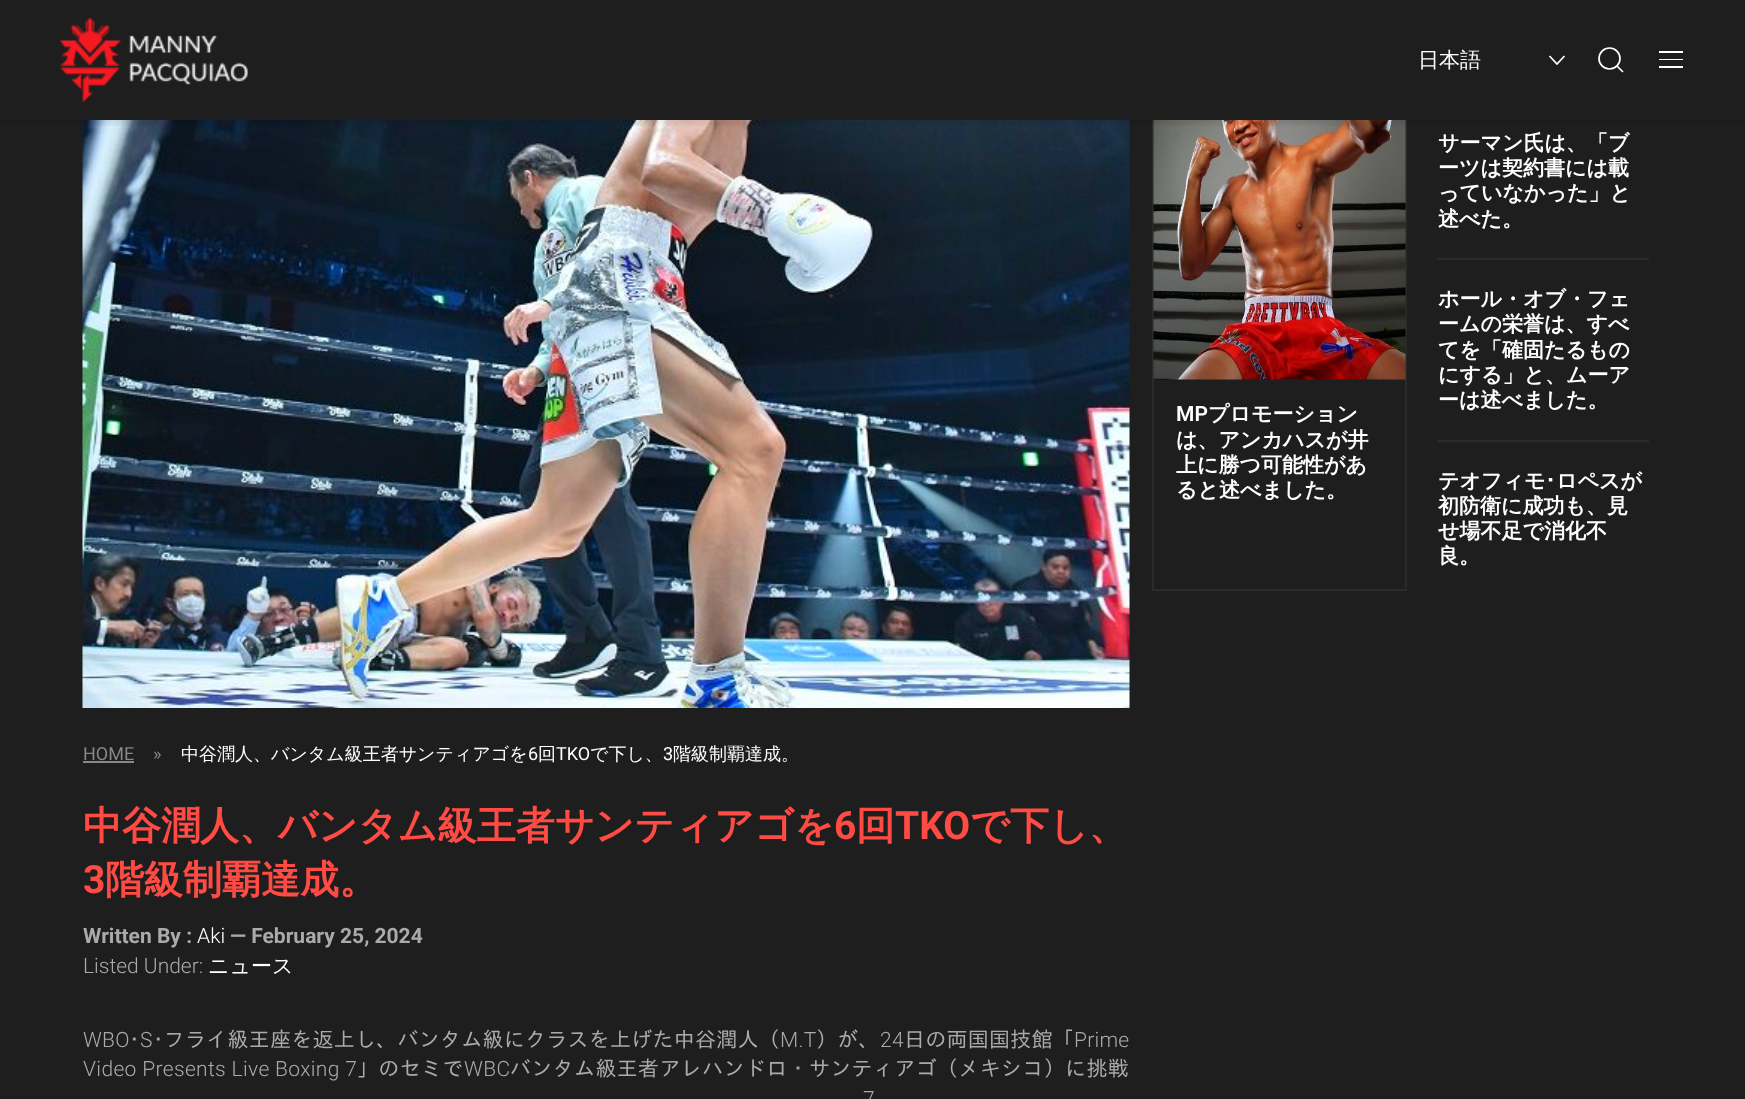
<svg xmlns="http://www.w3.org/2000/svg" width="1745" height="1099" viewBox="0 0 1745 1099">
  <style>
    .t1 { font: 500 21px WenQuanYi Zen Hei; fill: #fff; }
    .t2 { font: 600 21px Roboto; fill: #fff; }
    .t3 { font: bold 21px WenQuanYi Zen Hei; fill: #fff; }
    .t4 { font: bold 21px IPAGothic; fill: #fff; }
    .t5 { font: 18px Roboto; fill: #888; }
    .t6 { font: 500 18px WenQuanYi Zen Hei; fill: #fff; }
    .t7 { font: 18px Roboto; fill: #fff; }
    .t8 { font: bold 39px WenQuanYi Zen Hei; fill: #ff4b44; }
    .t9 { font: bold 39px Roboto; fill: #ff4b44; }
    .t10 { font: bold 21px Roboto; fill: #aaa; }
    .t11 { font: 300 21px Roboto; fill: #fff; }
    .t12 { font: 300 21px Roboto; fill: #aaa; }
    .t13 { font: 300 21px Roboto; letter-spacing: 0.25px; fill: #aaa; }
    .t14 { font: 21px IPAGothic; letter-spacing: 0.25px; fill: #aaa; }
    .t15 { font: 300 21px Roboto; letter-spacing: 0.35px; fill: #aaa; }
    .t16 { font: 21px IPAGothic; letter-spacing: 0.35px; fill: #aaa; }
  </style>
  <defs>
    <clipPath id="clip1"><rect x="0" y="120" width="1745" height="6"/></clipPath>
  </defs>
  <rect width="100%" height="100%" fill="#1e1e1e"/>
  <rect x="1153" y="10" width="253" height="580" fill="none" stroke="#2b2b2b" stroke-width="2"/>
  <rect x="1152" y="9" width="255" height="111" fill="#1e1e1e"/>
  <image x="1153" y="120" width="253" height="260" href="images/2.png"/>
  <image x="82" y="120" width="1048" height="588" href="images/3.png"/>
  <g clip-path="url(#clip1)">
    <rect x="0" y="3" width="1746" height="120" fill="#0000001a" filter="blur(4px)"/>
  </g>
  <image x="60" y="18" width="188" height="84" href="images/1.png"/>
  <text x="1418" y="67" class="t1">日本語</text>
  <path d="M1549.5 56L1557 64L1564.5 56" fill="none" stroke="#fff" stroke-width="1.7"/>
  <circle cx="1609.5" cy="58.5" r="10.5" fill="none" stroke="#fff" stroke-width="1.7"/>
  <path d="M1617 66L1623 72Z" fill="none" stroke="#fff" stroke-width="1.7"/>
  <rect x="1659" y="51" width="24" height="2" fill="#fff"/>
  <rect x="1659" y="59" width="24" height="1" fill="#fff"/>
  <rect x="1659" y="66" width="24" height="2" fill="#fff"/>
  <text x="1176" y="421" class="t2">MP</text>
  <text x="1208" y="421" class="t3">プロモーション</text>
  <text x="1176" y="447" class="t3">は、アンカハスが井</text>
  <text x="1176" y="472" class="t3">上に勝つ可能性があ</text>
  <text x="1176" y="497" class="t3">ると述べました。</text>
  <text x="1438" y="150" class="t3">サーマン氏は、「ブ</text>
  <text x="1438" y="175" class="t3">ーツは契約書には載</text>
  <text x="1438" y="200" class="t3">っていなかった」と</text>
  <text x="1438" y="226" class="t3">述べた。</text>
  <rect x="1437" y="258" width="212" height="2" fill="#2b2b2b"/>
  <text x="1438" y="306" class="t3">ホール・オブ・フェ</text>
  <text x="1438" y="331" class="t3">ームの栄誉は、すべ</text>
  <text x="1438" y="357" class="t3">てを「確固たるもの</text>
  <text x="1438" y="382" class="t3">にする」と、ムーア</text>
  <text x="1438" y="407" class="t3">ーは述べました。</text>
  <rect x="1437" y="440" width="212" height="2" fill="#2b2b2b"/>
  <text x="1438" y="488" class="t3">テオフィモ</text>
  <text x="1545" y="488" class="t4">･</text>
  <text x="1556" y="488" class="t3">ロペスが</text>
  <text x="1438" y="513" class="t3">初防衛に成功も、見</text>
  <text x="1438" y="538" class="t3">せ場不足で消化不</text>
  <text x="1438" y="563" class="t3">良。</text>
  <text x="83" y="760" class="t5">HOME</text>
  <rect x="83" y="761" width="51" height="2" fill="#888"/>
  <text x="153" y="760" class="t5">»</text>
  <text x="181" y="760" class="t6">中谷潤人、バンタム級王者サンティアゴを</text>
  <text x="528" y="760" class="t7">6</text>
  <text x="538" y="760" class="t6">回</text>
  <text x="556" y="760" class="t7">TKO</text>
  <text x="590" y="760" class="t6">で下し、</text>
  <text x="663" y="760" class="t7">3</text>
  <text x="673" y="760" class="t6">階級制覇達成。</text>
  <text x="83" y="839" class="t8">中谷潤人、バンタム級王者サンティアゴを</text>
  <text x="834" y="839" class="t9">6</text>
  <text x="856" y="839" class="t8">回</text>
  <text x="895" y="839" class="t9">TKO</text>
  <text x="970" y="839" class="t8">で下し、</text>
  <text x="83" y="893" class="t9">3</text>
  <text x="105" y="893" class="t8">階級制覇達成。</text>
  <text x="83" y="943" class="t10">Written By :</text>
  <text x="197" y="943" class="t11">Aki</text>
  <text x="230" y="943" class="t10">— February 25, 2024</text>
  <text x="83" y="973" class="t12">Listed Under:</text>
  <text x="208" y="973" class="t1">ニュース</text>
  <text x="83" y="1047" class="t13">WBO</text>
  <text x="129" y="1047" class="t14">･</text>
  <text x="140" y="1047" class="t13">S</text>
  <text x="153" y="1047" class="t14">･フライ級王座を返上し、バンタム級にクラスを上げた中谷潤人（</text>
  <text x="780" y="1047" class="t13">M.T</text>
  <text x="816" y="1047" class="t14">）が、</text>
  <text x="880" y="1047" class="t13">24</text>
  <text x="904" y="1047" class="t14">日の両国国技館「</text>
  <text x="1074" y="1047" class="t13">Prime</text>
  <text x="83" y="1076" class="t15">Video Presents Live Boxing 7</text>
  <text x="357" y="1076" class="t16">」のセミで</text>
  <text x="464" y="1076" class="t15">WBC</text>
  <text x="510" y="1076" class="t16">バンタム級王者アレハンドロ・サンティアゴ（メキシコ）に挑戦</text>
  <text x="863" y="1106" class="t12">7</text>
</svg>
